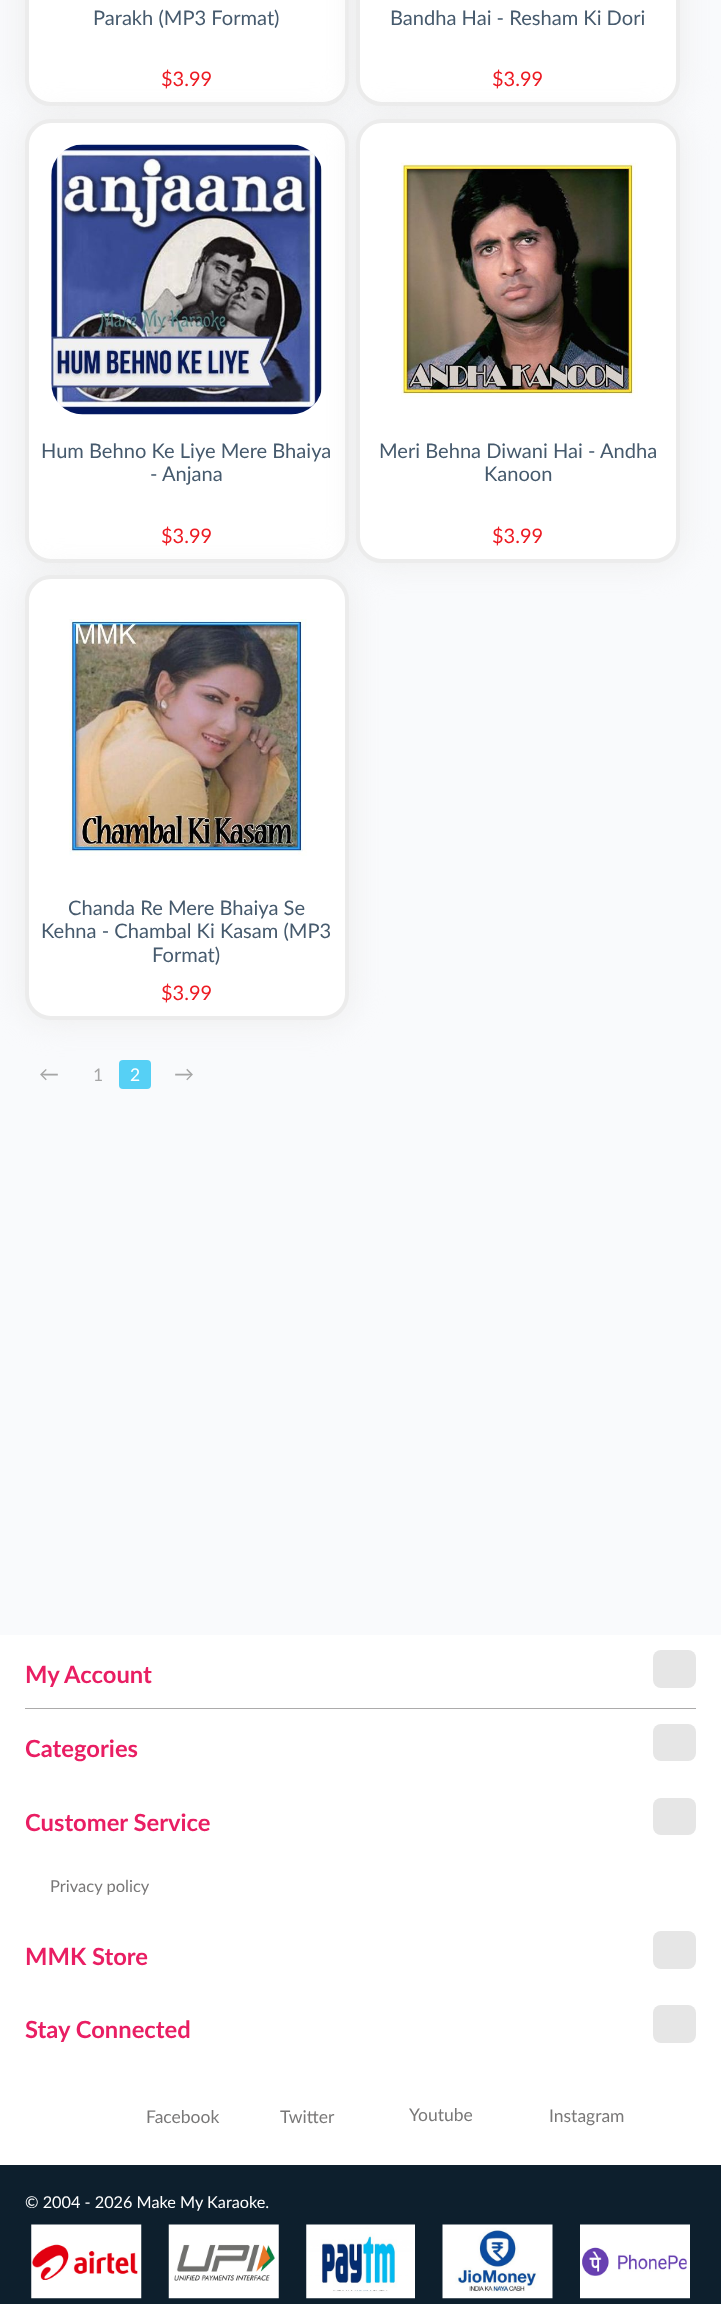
<svg xmlns="http://www.w3.org/2000/svg" width="721" height="2304" viewBox="0 0 721 2304">
  <style>
    .t1 { font: 20.1px Lato; fill: #465a6d; }
    .t2 { font: 20px Lato; fill: #ed1a22; }
    .t3 { font: 20px Lato; fill: #a6a6a6; }
    .t4 { font: 17.5px Lato; fill: #a6a6a6; }
    .t5 { font: 17.5px Lato; fill: #fff; }
    .t6 { font: bold 23.75px Lato; fill: #e91e63; }
    .t7 { font: 16.5px Lato; fill: #797878; }
    .t8 { font: 17.5px Lato; fill: #797878; }
    .t9 { font: 16.25px Lato; fill: #fff; }
  </style>
  <rect width="100%" height="100%" fill="#f9fafc"/>
  <rect x="25" y="-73" width="324" height="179" rx="26" fill="#ececec" filter="blur(15.5px)"/>
  <rect x="27" y="-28" width="320" height="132" rx="24" fill="#fff" stroke="#ececec" stroke-width="4"/>
  <text x="93" y="25" class="t1">Parakh (MP3 Format)</text>
  <text x="161" y="86" class="t2">$3.99</text>
  <rect x="356" y="-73" width="324" height="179" rx="26" fill="#ececec" filter="blur(15.5px)"/>
  <rect x="358" y="-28" width="320" height="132" rx="24" fill="#fff" stroke="#ececec" stroke-width="4"/>
  <text x="390" y="25" class="t1">Bandha Hai - Resham Ki Dori</text>
  <text x="492" y="86" class="t2">$3.99</text>
  <rect x="25" y="119" width="324" height="444" rx="26" fill="#ececec" filter="blur(15.5px)"/>
  <rect x="27" y="121" width="320" height="440" rx="24" fill="#fff" stroke="#ececec" stroke-width="4"/>
  <image x="51" y="144" width="271" height="271" href="images/1.png"/>
  <text x="41" y="458" class="t1">Hum Behno Ke Liye Mere Bhaiya</text>
  <text x="150" y="481" class="t1">- Anjana</text>
  <text x="161" y="543" class="t2">$3.99</text>
  <rect x="356" y="119" width="324" height="444" rx="26" fill="#ececec" filter="blur(15.5px)"/>
  <rect x="358" y="121" width="320" height="440" rx="24" fill="#fff" stroke="#ececec" stroke-width="4"/>
  <image x="401" y="162" width="237" height="237" href="images/2.png"/>
  <text x="379" y="458" class="t1">Meri Behna Diwani Hai - Andha</text>
  <text x="484" y="481" class="t1">Kanoon</text>
  <text x="492" y="543" class="t2">$3.99</text>
  <rect x="119" y="1060" width="32" height="29" rx="4" fill="#56d0f5"/>
  <rect x="25" y="575" width="324" height="445" rx="26" fill="#ececec" filter="blur(15.5px)"/>
  <rect x="27" y="577" width="320" height="441" rx="24" fill="#fff" stroke="#ececec" stroke-width="4"/>
  <image x="69" y="619" width="238" height="237" href="images/3.png"/>
  <text x="68" y="915" class="t1">Chanda Re Mere Bhaiya Se</text>
  <text x="41" y="938" class="t1">Kehna - Chambal Ki Kasam (MP3</text>
  <text x="152" y="962" class="t1">Format)</text>
  <text x="161" y="1000" class="t2">$3.99</text>
  <text x="39" y="1081" class="t3">←</text>
  <text x="93" y="1081" class="t4">1</text>
  <text x="130" y="1081" class="t5">2</text>
  <text x="174" y="1081" class="t3">→</text>
  <rect x="0" y="1635" width="721" height="530" fill="#fff"/>
  <rect x="25" y="1708" width="671" height="1" fill="#acabab"/>
  <text x="25" y="1683" class="t6">My Account</text>
  <rect x="653" y="1650" width="43" height="38" rx="8" fill="#e6e6e6"/>
  <text x="25" y="1757" class="t6">Categories</text>
  <rect x="653" y="1724" width="43" height="37" rx="8" fill="#e6e6e6"/>
  <text x="25" y="1831" class="t6">Customer Service</text>
  <rect x="653" y="1798" width="43" height="37" rx="8" fill="#e6e6e6"/>
  <text x="50" y="1892" class="t7">Privacy policy</text>
  <text x="25" y="1965" class="t6">MMK Store</text>
  <rect x="653" y="1931" width="43" height="38" rx="8" fill="#e6e6e6"/>
  <text x="25" y="2038" class="t6">Stay Connected</text>
  <rect x="653" y="2005" width="43" height="38" rx="8" fill="#e6e6e6"/>
  <text x="146" y="2123" class="t8">Facebook</text>
  <text x="280" y="2123" class="t8">Twitter</text>
  <text x="409" y="2121" class="t8">Youtube</text>
  <text x="549" y="2122" class="t8">Instagram</text>
  <rect x="0" y="2165" width="721" height="139" fill="#0d1f2d"/>
  <text x="25" y="2208" class="t9">© 2004 - 2026 Make My Karaoke.</text>
  <image x="31" y="2224" width="111" height="75" href="images/4.png"/>
  <image x="168" y="2224" width="111" height="75" href="images/5.png"/>
  <image x="306" y="2224" width="109" height="75" href="images/6.png"/>
  <image x="442" y="2224" width="111" height="75" href="images/7.png"/>
  <image x="580" y="2224" width="110" height="75" href="images/8.png"/>
</svg>
